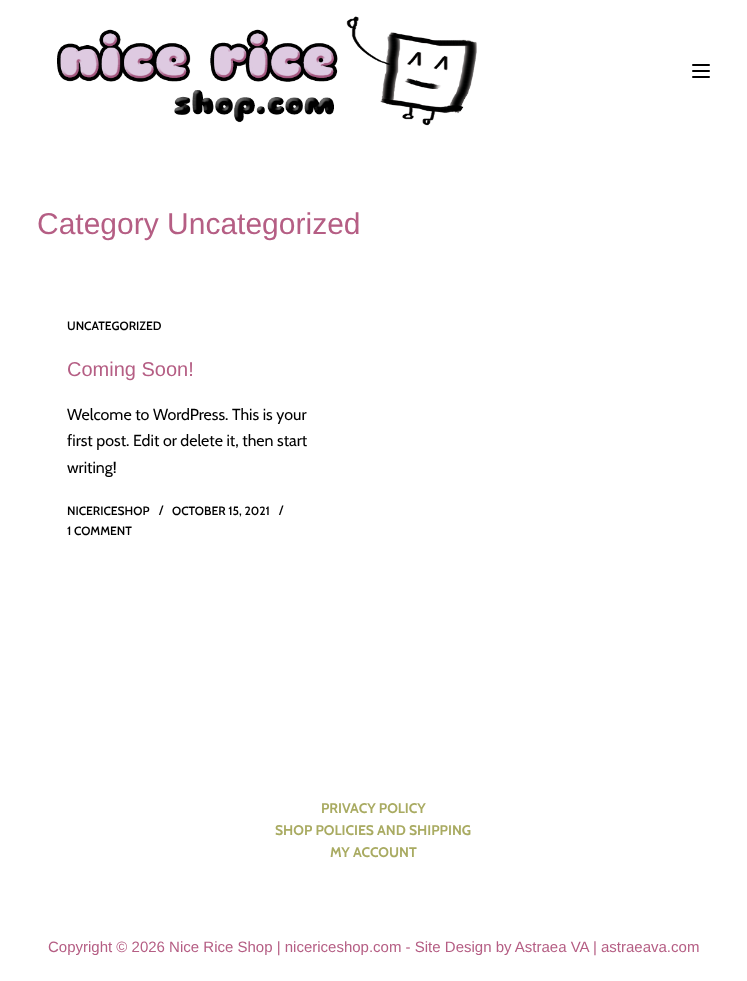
<svg xmlns="http://www.w3.org/2000/svg" width="747" height="981" viewBox="0 0 747 981">
  <style>
    .t1 { font: 30px Liberation Sans; fill: #b55e84; }
    .t2 { font: 600 12px Cabin; fill: #000; }
    .t3 { font: 20px Liberation Sans; fill: #b55e84; }
    .t4 { font: 16px Cabin; fill: #000; }
    .t5 { font: bold 14px Cabin; fill: #a9ab62; }
    .t6 { font: 15px Liberation Sans; fill: #b55e84; }
  </style>
  <rect width="100%" height="100%" fill="#fff"/>
  <image x="57" y="16" width="420" height="110" href="images/1.png"/>
  <rect x="692" y="64" width="18" height="2" rx="1" fill="#000"/>
  <rect x="692" y="70" width="18" height="2" rx="1" fill="#000"/>
  <rect x="692" y="76" width="18" height="2" rx="1" fill="#000"/>
  <text x="37" y="234" class="t1">Category Uncategorized</text>
  <text x="67" y="330" class="t2">UNCATEGORIZED</text>
  <text x="67" y="376" class="t3">Coming Soon!</text>
  <text x="67" y="420" class="t4">Welcome to WordPress. This is your</text>
  <text x="67" y="446" class="t4">first post. Edit or delete it, then start</text>
  <text x="67" y="473" class="t4">writing!</text>
  <text x="67" y="515" class="t2">NICERICESHOP</text>
  <text x="159" y="514" class="t2">/</text>
  <text x="172" y="515" class="t2">OCTOBER 15, 2021</text>
  <text x="279" y="514" class="t2">/</text>
  <text x="67" y="535" class="t2">1 COMMENT</text>
  <text x="321" y="813" class="t5">PRIVACY POLICY</text>
  <text x="275" y="835" class="t5">SHOP POLICIES AND SHIPPING</text>
  <text x="330" y="857" class="t5">MY ACCOUNT</text>
  <text x="48" y="952" class="t6">Copyright © 2026 Nice Rice Shop | nicericeshop.com - Site Design by Astraea VA | astraeava.com</text>
</svg>
